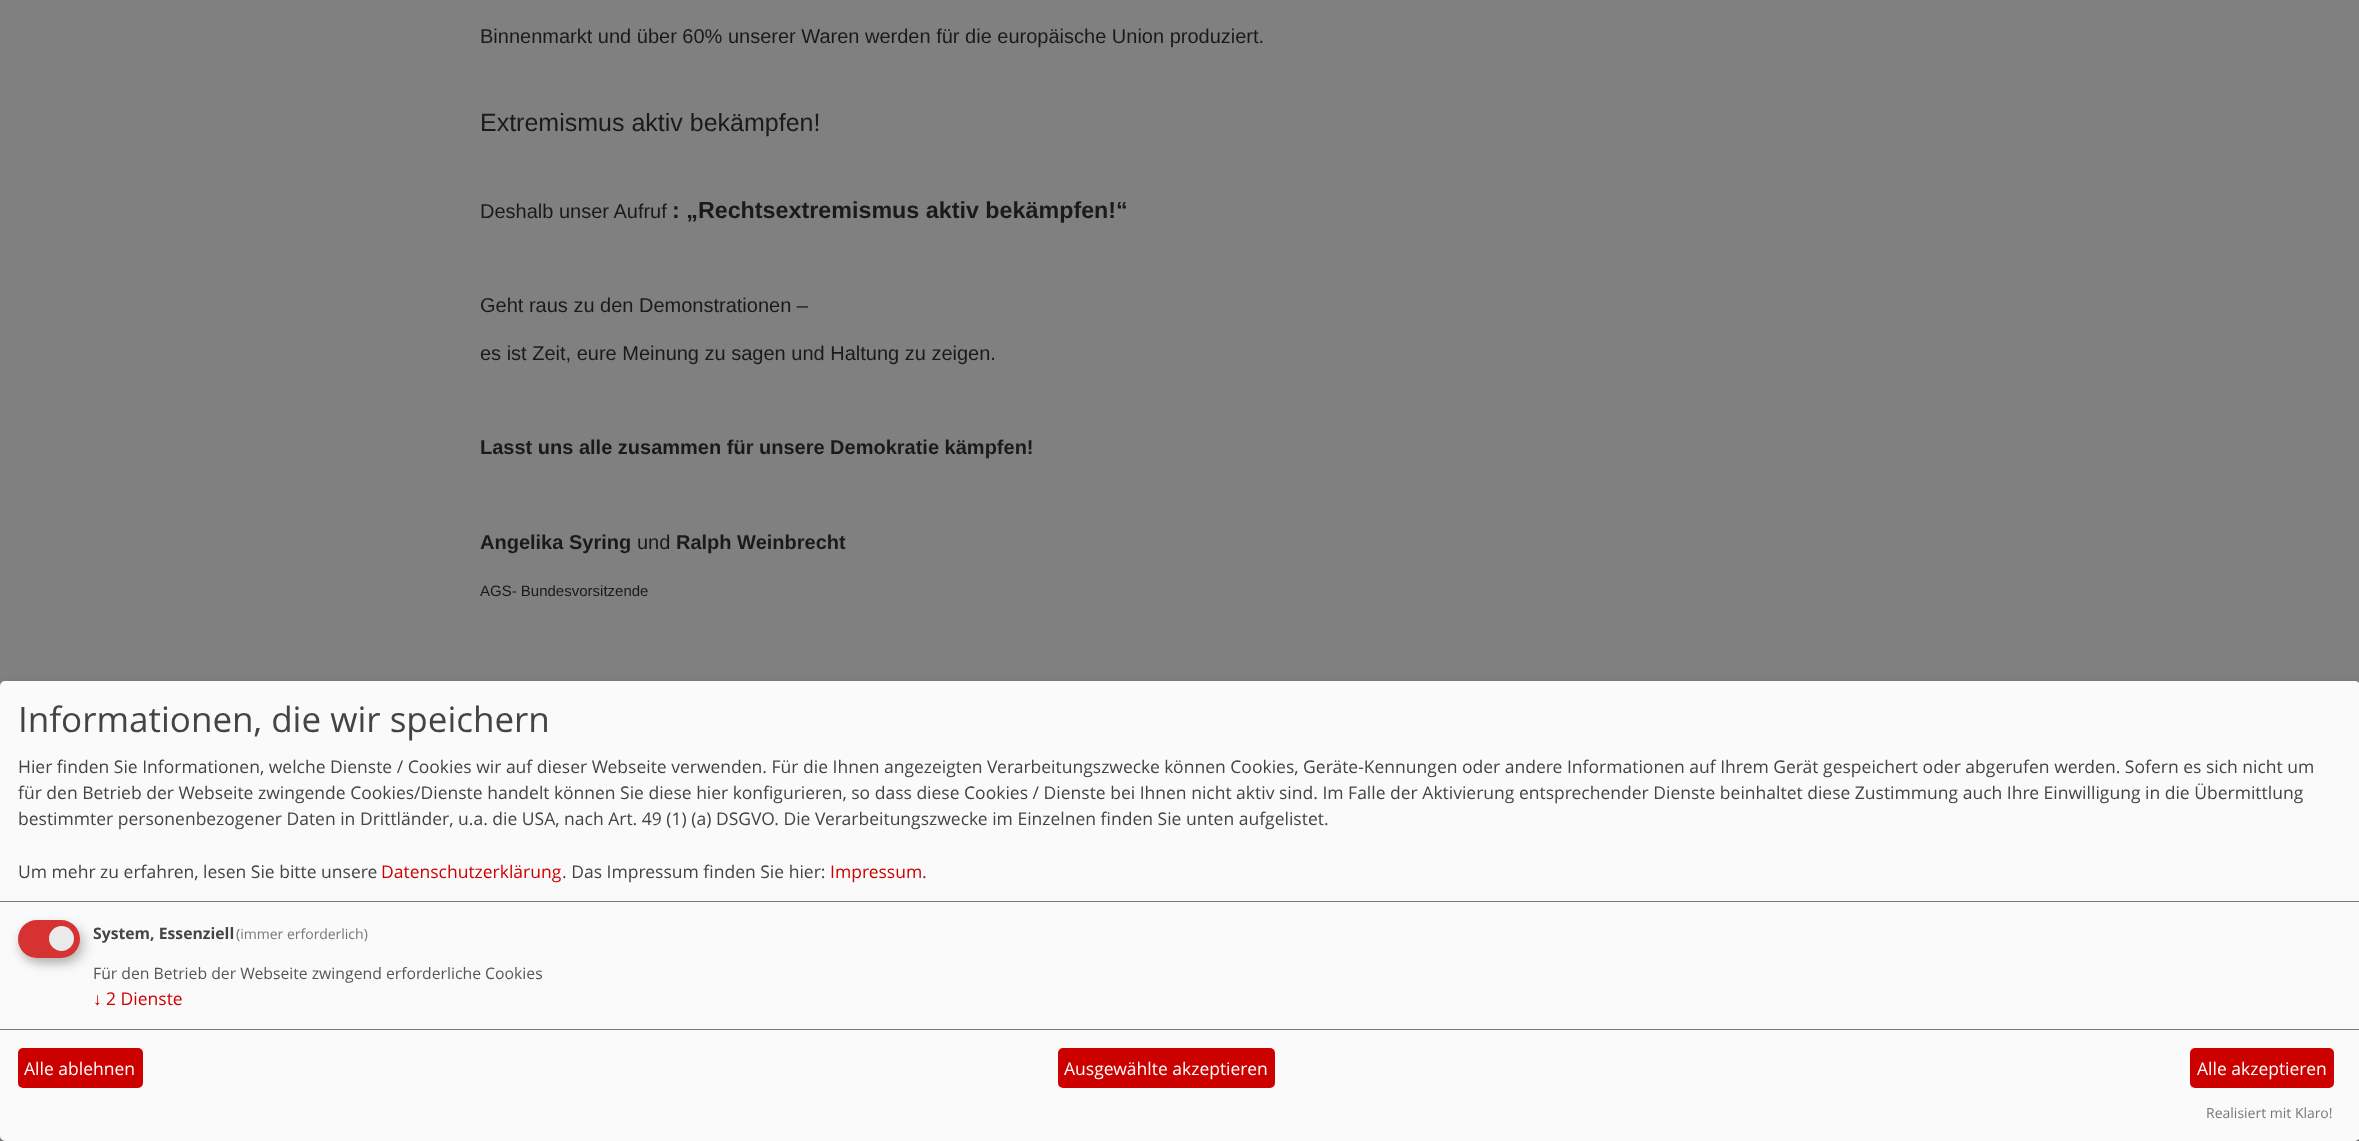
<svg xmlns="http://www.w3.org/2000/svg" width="2359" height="1141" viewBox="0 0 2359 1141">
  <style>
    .t1 { font: 20px Liberation Sans; fill: #1a1a1a; }
    .t2 { font: 25px Liberation Sans; fill: #1a1a1a; }
    .t3 { font: bold 23.3px Liberation Sans; fill: #1a1a1a; }
    .t4 { font: bold 20px Liberation Sans; fill: #1a1a1a; }
    .t5 { font: 15px Liberation Sans; fill: #1a1a1a; }
    .t6 { font: 35px Open Sans; fill: #444; }
    .t7 { font: 17.5px Open Sans; fill: #444; }
    .t8 { font: 17.5px Open Sans; fill: #cd0000; }
    .t9 { font: bold 15.75px Open Sans; fill: #444; }
    .t10 { font: 14px Open Sans; fill: #777; }
    .t11 { font: 15.75px Open Sans; fill: #555; }
    .t12 { font: 17.5px Liberation Sans; fill: #cd0000; }
    .t13 { font: 17.5px Open Sans; fill: #fff; }
  </style>
  <rect width="100%" height="100%" fill="#808080"/>
  <text x="480" y="43" class="t1">Binnenmarkt und über 60% unserer Waren werden für die europäische Union produziert.</text>
  <text x="480" y="131" class="t2">Extremismus aktiv bekämpfen!</text>
  <text x="480" y="218" class="t1">Deshalb unser Aufruf</text>
  <text x="672" y="218" class="t3">: „Rechtsextremismus aktiv bekämpfen!“</text>
  <text x="480" y="312" class="t1">Geht raus zu den Demonstrationen –</text>
  <text x="480" y="360" class="t1">es ist Zeit, eure Meinung zu sagen und Haltung zu zeigen.</text>
  <text x="480" y="454" class="t4">Lasst uns alle zusammen für unsere Demokratie kämpfen!</text>
  <text x="480" y="549" class="t4">Angelika Syring</text>
  <text x="637" y="549" class="t1">und</text>
  <text x="676" y="549" class="t4">Ralph Weinbrecht</text>
  <text x="480" y="596" class="t5">AGS- Bundesvorsitzende</text>
  <rect x="6" y="688" width="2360" height="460" rx="5" fill="#00000030" filter="blur(6px)"/>
  <rect x="0" y="686" width="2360" height="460" rx="5" fill="#00000033" filter="blur(4px)"/>
  <rect x="0" y="681" width="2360" height="460" rx="5" fill="#fafafa"/>
  <rect x="0" y="901" width="2359" height="1" fill="#777"/>
  <text x="18" y="732" class="t6">Informationen, die wir speichern</text>
  <text x="18" y="773" class="t7">Hier finden Sie Informationen, welche Dienste / Cookies wir auf dieser Webseite verwenden. Für die Ihnen angezeigten Verarbeitungszwecke können Cookies, Geräte-Kennungen oder andere Informationen auf Ihrem Gerät gespeichert oder abgerufen werden. Sofern es sich nicht um</text>
  <text x="18" y="799" class="t7">für den Betrieb der Webseite zwingende Cookies/Dienste handelt können Sie diese hier konfigurieren, so dass diese Cookies / Dienste bei Ihnen nicht aktiv sind. Im Falle der Aktivierung entsprechender Dienste beinhaltet diese Zustimmung auch Ihre Einwilligung in die Übermittlung</text>
  <text x="18" y="825" class="t7">bestimmter personenbezogener Daten in Drittländer, u.a. die USA, nach Art. 49 (1) (a) DSGVO. Die Verarbeitungszwecke im Einzelnen finden Sie unten aufgelistet.</text>
  <text x="18" y="878" class="t7">Um mehr zu erfahren, lesen Sie bitte unsere</text>
  <text x="381" y="878" class="t8">Datenschutzerklärung</text>
  <text x="562" y="878" class="t7">. Das Impressum finden Sie hier:</text>
  <text x="830" y="878" class="t8">Impressum</text>
  <text x="922" y="878" class="t7">.</text>
  <rect x="24" y="926" width="62" height="38" rx="19" fill="#00000026" filter="blur(6px)"/>
  <rect x="18" y="925" width="62" height="38" rx="19" fill="#32323233" filter="blur(4px)"/>
  <rect x="18" y="920" width="62" height="38" rx="19" fill="#d63232"/>
  <circle cx="61.5" cy="938.5" r="12.5" fill="#eaeaea"/>
  <text x="93" y="939" class="t9">System, Essenziell</text>
  <text x="236" y="939" class="t10">(immer erforderlich)</text>
  <text x="93" y="979" class="t11">Für den Betrieb der Webseite zwingend erforderliche Cookies</text>
  <text x="93" y="1005" class="t12">↓</text>
  <text x="106" y="1005" class="t8">2 Dienste</text>
  <rect x="0" y="1029" width="2359" height="1" fill="#777"/>
  <rect x="18" y="1048" width="125" height="40" rx="5" fill="#cd0000"/>
  <text x="24" y="1075" class="t13">Alle ablehnen</text>
  <rect x="1058" y="1048" width="217" height="40" rx="5" fill="#cd0000"/>
  <text x="1064" y="1075" class="t13">Ausgewählte akzeptieren</text>
  <rect x="2190" y="1048" width="144" height="40" rx="5" fill="#cd0000"/>
  <text x="2197" y="1075" class="t13">Alle akzeptieren</text>
  <text x="2206" y="1118" class="t10">Realisiert mit Klaro!</text>
</svg>
